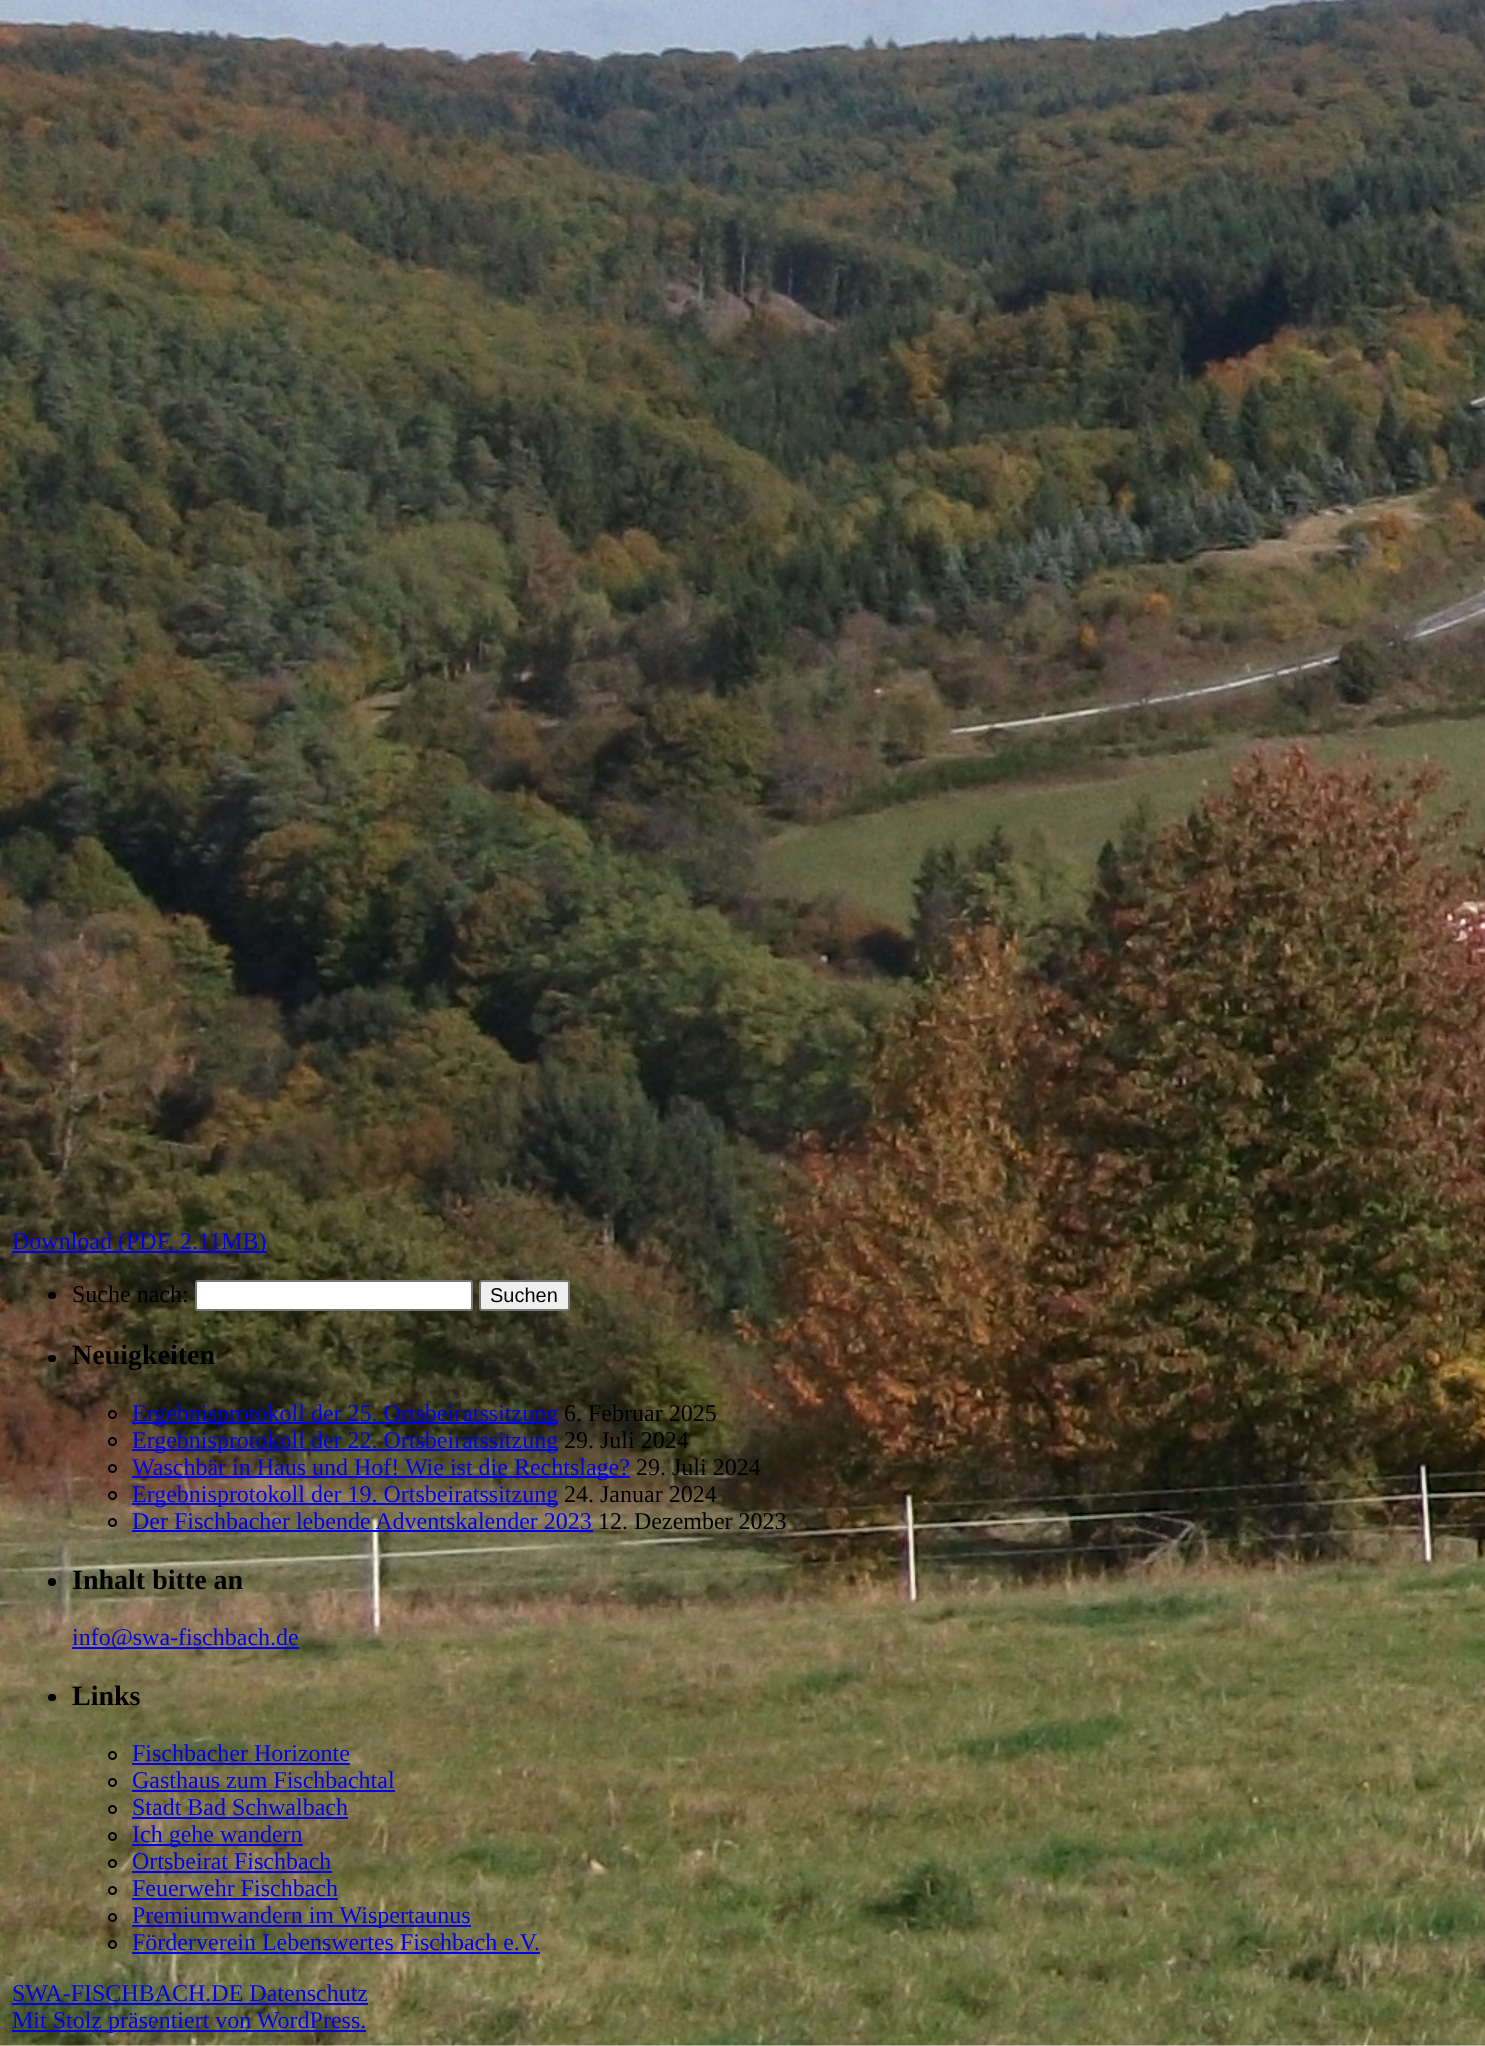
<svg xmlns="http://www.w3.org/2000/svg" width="1485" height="2046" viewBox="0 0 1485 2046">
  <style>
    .t1 { font: 24px Liberation Serif; fill: #00e; }
    .t2 { font: 24px Liberation Serif; fill: #000; }
    .t3 { font: 20px Liberation Sans; fill: #000; }
    .t4 { font: bold 28px Liberation Serif; fill: #000; }
  </style>
  <rect width="100%" height="100%" fill="#f4f4f4"/>
  <image x="0" y="0" width="1485" height="2046" href="images/1.png"/>
  <rect x="12" y="1251" width="255" height="2" fill="#00e"/>
  <text x="12" y="1249" class="t1">Download (PDF, 2.11MB)</text>
  <rect x="48" y="1292" width="8" height="7" rx="3.5" fill="#000"/>
  <text x="72" y="1302" class="t2">Suche nach:</text>
  <rect x="196" y="1281" width="276" height="29" rx="2" fill="#fff" stroke="#767676" stroke-width="2"/>
  <rect x="480" y="1281" width="89" height="29" rx="2" fill="#efefef" stroke="#767676" stroke-width="2"/>
  <text x="490" y="1302" class="t3">Suchen</text>
  <rect x="48" y="1355" width="8" height="7" rx="3.5" fill="#000"/>
  <text x="72" y="1364" class="t4">Neuigkeiten</text>
  <circle cx="112.5" cy="1414.5" r="3.5" fill="none" stroke="#000" stroke-width="2"/>
  <rect x="132" y="1422" width="426" height="2" fill="#00e"/>
  <text x="132" y="1421" class="t1">Ergebnisprotokoll der 25. Ortsbeiratssitzung</text>
  <text x="564" y="1421" class="t2">6. Februar 2025</text>
  <circle cx="112.5" cy="1441.5" r="3.5" fill="none" stroke="#000" stroke-width="2"/>
  <rect x="132" y="1449" width="426" height="2" fill="#00e"/>
  <text x="132" y="1448" class="t1">Ergebnisprotokoll der 22. Ortsbeiratssitzung</text>
  <text x="564" y="1448" class="t2">29. Juli 2024</text>
  <circle cx="112.5" cy="1468.5" r="3.5" fill="none" stroke="#000" stroke-width="2"/>
  <rect x="132" y="1476" width="498" height="2" fill="#00e"/>
  <text x="132" y="1475" class="t1">Waschbär in Haus und Hof! Wie ist die Rechtslage?</text>
  <text x="636" y="1475" class="t2">29. Juli 2024</text>
  <circle cx="112.5" cy="1495.5" r="3.5" fill="none" stroke="#000" stroke-width="2"/>
  <rect x="132" y="1503" width="426" height="2" fill="#00e"/>
  <text x="132" y="1502" class="t1">Ergebnisprotokoll der 19. Ortsbeiratssitzung</text>
  <text x="564" y="1502" class="t2">24. Januar 2024</text>
  <circle cx="112.5" cy="1522.5" r="3.5" fill="none" stroke="#000" stroke-width="2"/>
  <text x="132" y="1529" class="t1">Der Fischbacher lebende Adventskalender 2023</text>
  <rect x="132" y="1530" width="461" height="2" fill="#00e"/>
  <text x="598" y="1529" class="t2">12. Dezember 2023</text>
  <circle cx="52" cy="1582" r="4" fill="#000"/>
  <text x="72" y="1589" class="t4">Inhalt bitte an</text>
  <rect x="72" y="1647" width="227" height="2" fill="#00e"/>
  <text x="72" y="1645" class="t1">info@swa-fischbach.de</text>
  <rect x="48" y="1694" width="8" height="7" rx="3.5" fill="#000"/>
  <text x="72" y="1705" class="t4">Links</text>
  <circle cx="112.5" cy="1755.5" r="3.5" fill="none" stroke="#000" stroke-width="2"/>
  <text x="132" y="1761" class="t1">Fischbacher Horizonte</text>
  <rect x="132" y="1763" width="218" height="2" fill="#00e"/>
  <circle cx="112.5" cy="1782.5" r="3.5" fill="none" stroke="#000" stroke-width="2"/>
  <text x="132" y="1788" class="t1">Gasthaus zum Fischbachtal</text>
  <rect x="132" y="1790" width="263" height="2" fill="#00e"/>
  <circle cx="112.5" cy="1809.5" r="3.5" fill="none" stroke="#000" stroke-width="2"/>
  <text x="132" y="1815" class="t1">Stadt Bad Schwalbach</text>
  <rect x="132" y="1817" width="216" height="2" fill="#00e"/>
  <circle cx="112.5" cy="1836.5" r="3.5" fill="none" stroke="#000" stroke-width="2"/>
  <rect x="132" y="1844" width="171" height="2" fill="#00e"/>
  <text x="132" y="1842" class="t1">Ich gehe wandern</text>
  <circle cx="112.5" cy="1863.5" r="3.5" fill="none" stroke="#000" stroke-width="2"/>
  <text x="132" y="1869" class="t1">Ortsbeirat Fischbach</text>
  <rect x="132" y="1871" width="200" height="2" fill="#00e"/>
  <circle cx="112.5" cy="1890.5" r="3.5" fill="none" stroke="#000" stroke-width="2"/>
  <text x="132" y="1896" class="t1">Feuerwehr Fischbach</text>
  <rect x="132" y="1898" width="206" height="2" fill="#00e"/>
  <circle cx="112.5" cy="1917.5" r="3.5" fill="none" stroke="#000" stroke-width="2"/>
  <rect x="132" y="1925" width="339" height="2" fill="#00e"/>
  <text x="132" y="1923" class="t1">Premiumwandern im Wispertaunus</text>
  <circle cx="112.5" cy="1944.5" r="3.5" fill="none" stroke="#000" stroke-width="2"/>
  <text x="132" y="1950" class="t1">Förderverein Lebenswertes Fischbach e.V.</text>
  <rect x="132" y="1952" width="408" height="2" fill="#00e"/>
  <text x="12" y="2001" class="t1">SWA-FISCHBACH.DE Datenschutz</text>
  <rect x="12" y="2003" width="356" height="2" fill="#00e"/>
  <rect x="12" y="2030" width="354" height="2" fill="#00e"/>
  <text x="12" y="2028" class="t1">Mit Stolz präsentiert von WordPress.</text>
</svg>
